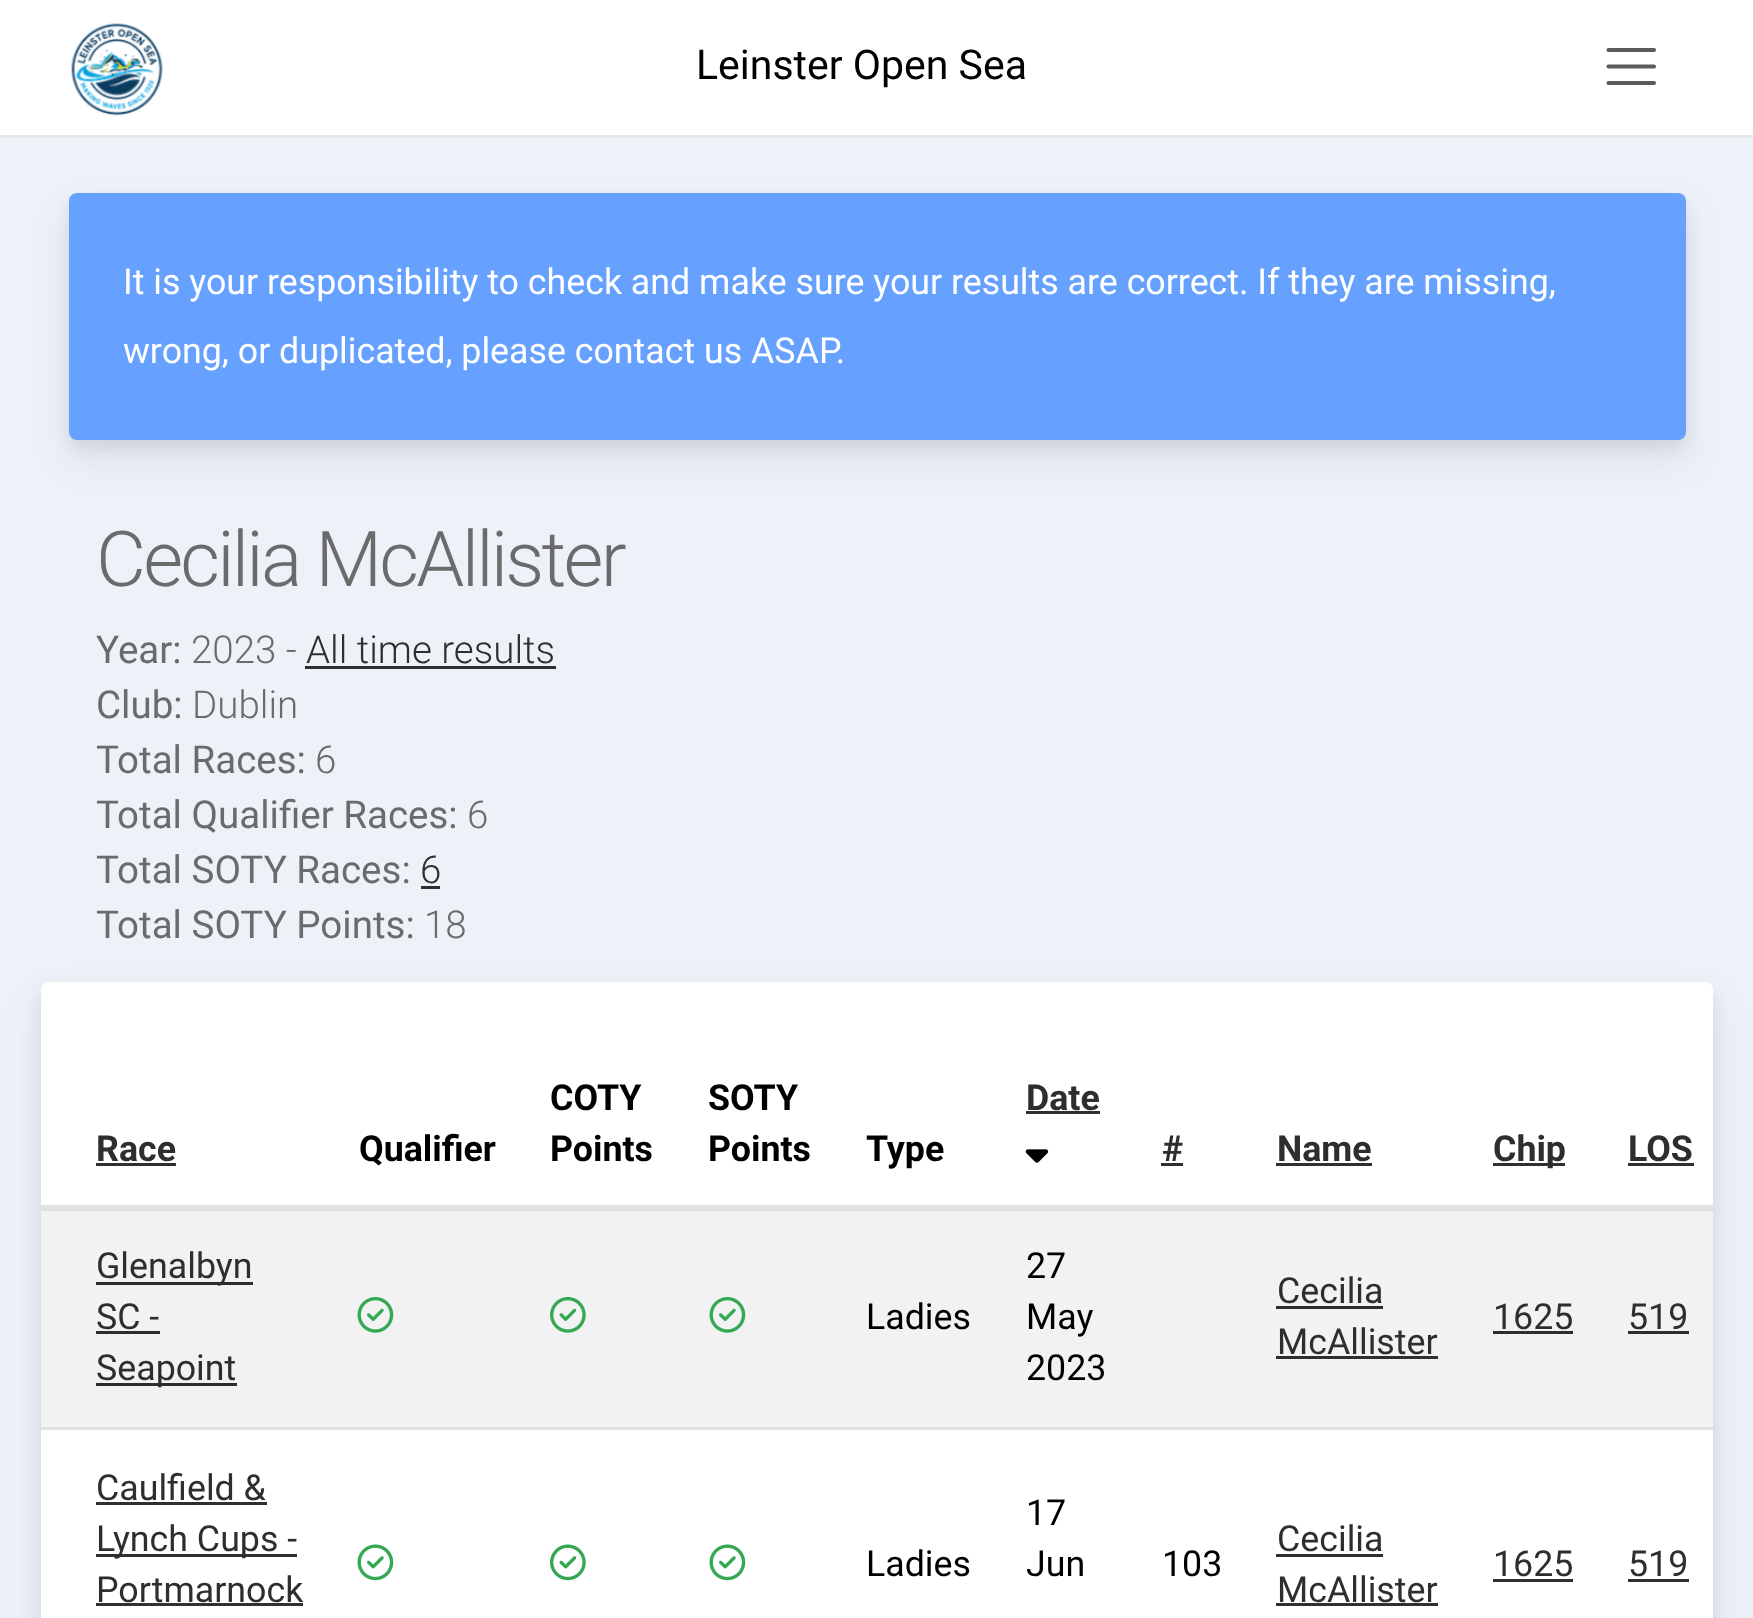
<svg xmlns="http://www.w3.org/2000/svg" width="1753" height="1618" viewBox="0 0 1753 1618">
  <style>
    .t1 { font: 41px Roboto; fill: #000; }
    .t2 { font: 35.75px Roboto; fill: #fff; }
    .t3 { font: 300 77px Roboto; letter-spacing: -2.75px; fill: #6b6b6b; }
    .t4 { font: 38.5px Roboto; fill: #6b6b6b; }
    .t5 { font: 300 38.5px Roboto; fill: #6b6b6b; }
    .t6 { font: 300 38.5px Roboto; fill: #2d2e2f; }
    .t7 { font: bold 35.75px Roboto; fill: #000; }
    .t8 { font: bold 35.75px Roboto; fill: #2d2e2f; }
    .t9 { font: 35.75px Roboto; fill: #2d2e2f; }
    .t10 { font: 35.75px Roboto; fill: #000; }
  </style>
  <rect width="100%" height="100%" fill="#edf2f9"/>
  <rect x="0" y="0" width="1753" height="135" fill="#fff"/>
  <rect x="0" y="135" width="1753" height="3" fill="#e6e6e6"/>
  <image x="71" y="23" width="92" height="93" href="images/1.png"/>
  <text x="696" y="79" class="t1">Leinster Open Sea</text>
  <path d="M1608.5 50H1654M1608.5 66.5H1654M1608.5 83H1654" fill="none" stroke="#595c5f" stroke-width="4.1" stroke-linecap="round"/>
  <rect x="69" y="201" width="1617" height="247" rx="8" fill="#00000012" filter="blur(8px)"/>
  <rect x="69" y="212" width="1617" height="247" rx="8" fill="#4145581a" filter="blur(19px)"/>
  <rect x="69" y="193" width="1617" height="247" rx="8" fill="#66a1ff"/>
  <text x="123" y="294" class="t2">It is your responsibility to check and make sure your results are correct. If they are missing,</text>
  <text x="123" y="363" class="t2">wrong, or duplicated, please contact us ASAP.</text>
  <text x="96" y="586" class="t3">Cecilia McAllister</text>
  <text x="96" y="663" class="t4">Year:</text>
  <text x="191" y="663" class="t5">2023 -</text>
  <text x="306" y="663" class="t6">All time results</text>
  <rect x="305" y="666" width="251" height="3" fill="#2d2e2f"/>
  <text x="96" y="718" class="t4">Club:</text>
  <text x="192" y="718" class="t5">Dublin</text>
  <text x="96" y="773" class="t4">Total Races:</text>
  <text x="315" y="773" class="t5">6</text>
  <text x="96" y="828" class="t4">Total Qualifier Races:</text>
  <text x="467" y="828" class="t5">6</text>
  <text x="96" y="883" class="t4">Total SOTY Races:</text>
  <text x="420" y="883" class="t6">6</text>
  <rect x="421" y="886" width="19" height="3" fill="#2d2e2f"/>
  <text x="96" y="938" class="t4">Total SOTY Points:</text>
  <text x="424" y="938" class="t5">18</text>
  <rect x="41" y="990" width="1672" height="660" rx="8" fill="#00000012" filter="blur(8px)"/>
  <rect x="41" y="1001" width="1672" height="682" rx="8" fill="#4145581a" filter="blur(19px)"/>
  <rect x="41" y="982" width="1672" height="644" rx="8" fill="#fff"/>
  <text x="550" y="1110" class="t7">COTY</text>
  <text x="550" y="1161" class="t7">Points</text>
  <text x="708" y="1110" class="t7">SOTY</text>
  <text x="708" y="1161" class="t7">Points</text>
  <text x="1026" y="1110" class="t8">Date</text>
  <rect x="1026" y="1111" width="74" height="3" fill="#303030"/>
  <image x="1025" y="1149" width="24" height="14" href="images/2.png"/>
  <path d="M49 982H330V1207H41V990C41 985.5 44.5 982 49 982Z" fill="#fff"/>
  <text x="96" y="1161" class="t8">Race</text>
  <rect x="96" y="1163" width="80" height="3" fill="#303030"/>
  <text x="359" y="1161" class="t7">Qualifier</text>
  <text x="866" y="1161" class="t7">Type</text>
  <text x="1162" y="1161" class="t8">#</text>
  <rect x="1161" y="1163" width="22" height="3" fill="#303030"/>
  <text x="1277" y="1161" class="t8">Name</text>
  <rect x="1276" y="1163" width="96" height="3" fill="#303030"/>
  <rect x="1493" y="1163" width="72" height="3" fill="#303030"/>
  <text x="1493" y="1161" class="t8">Chip</text>
  <path d="M1601 982H1705C1709.5 982 1713 985.5 1713 990V1207H1601Z" fill="#fff"/>
  <rect x="41" y="1205" width="1672" height="6" fill="#dee2e6"/>
  <text x="1628" y="1161" class="t8">LOS</text>
  <rect x="1628" y="1163" width="66" height="3" fill="#303030"/>
  <rect x="41" y="1211" width="1672" height="216" fill="#f2f2f2"/>
  <rect x="96" y="1282" width="157" height="3" fill="#2e2e2e"/>
  <text x="96" y="1278" class="t9">Glenalbyn</text>
  <text x="96" y="1329" class="t9">SC -</text>
  <rect x="96" y="1331" width="64" height="3" fill="#2e2e2e"/>
  <rect x="96" y="1383" width="141" height="3" fill="#2e2e2e"/>
  <text x="96" y="1380" class="t9">Seapoint</text>
  <image x="357" y="1297" width="37" height="36" href="images/3.png"/>
  <image x="550" y="1297" width="36" height="36" href="images/4.png"/>
  <image x="709" y="1297" width="37" height="36" href="images/3.png"/>
  <text x="866" y="1329" class="t10">Ladies</text>
  <text x="1026" y="1278" class="t10">27</text>
  <text x="1026" y="1329" class="t10">May</text>
  <text x="1026" y="1380" class="t10">2023</text>
  <text x="1277" y="1303" class="t9">Cecilia</text>
  <rect x="1276" y="1306" width="107" height="3" fill="#2e2e2e"/>
  <text x="1277" y="1354" class="t9">McAllister</text>
  <rect x="1276" y="1356" width="162" height="3" fill="#2e2e2e"/>
  <text x="1493" y="1329" class="t9">1625</text>
  <rect x="1493" y="1331" width="80" height="3" fill="#2e2e2e"/>
  <text x="1628" y="1329" class="t9">519</text>
  <rect x="1628" y="1331" width="61" height="3" fill="#2e2e2e"/>
  <text x="96" y="1500" class="t9">Caulfield &amp;</text>
  <rect x="96" y="1502" width="171" height="3" fill="#303030"/>
  <rect x="96" y="1554" width="201" height="3" fill="#303030"/>
  <text x="96" y="1551" class="t9">Lynch Cups -</text>
  <text x="96" y="1602" class="t9">Portmarnock</text>
  <rect x="96" y="1603" width="207" height="3" fill="#303030"/>
  <image x="357" y="1544" width="37" height="37" href="images/5.png"/>
  <image x="550" y="1544" width="36" height="37" href="images/6.png"/>
  <image x="709" y="1544" width="37" height="37" href="images/5.png"/>
  <text x="866" y="1576" class="t10">Ladies</text>
  <text x="1026" y="1525" class="t10">17</text>
  <text x="1026" y="1576" class="t10">Jun</text>
  <text x="1162" y="1576" class="t10">103</text>
  <text x="1277" y="1551" class="t9">Cecilia</text>
  <rect x="1276" y="1554" width="107" height="3" fill="#303030"/>
  <text x="1277" y="1602" class="t9">McAllister</text>
  <rect x="1276" y="1603" width="162" height="3" fill="#303030"/>
  <text x="1493" y="1576" class="t9">1625</text>
  <rect x="1493" y="1579" width="80" height="3" fill="#303030"/>
  <rect x="41" y="1427" width="1672" height="3" fill="#dee2e6"/>
  <text x="1628" y="1576" class="t9">519</text>
  <rect x="1628" y="1579" width="61" height="3" fill="#303030"/>
</svg>
